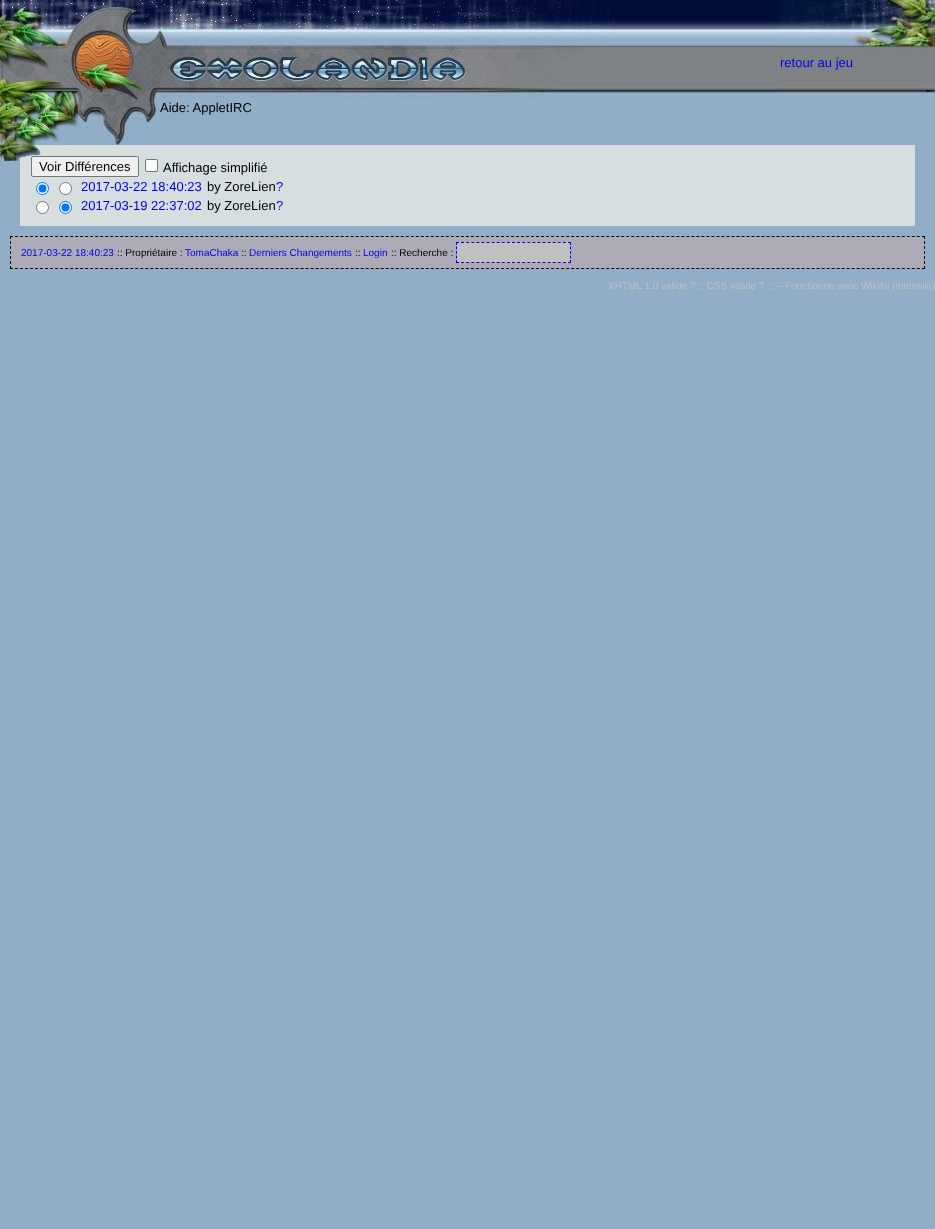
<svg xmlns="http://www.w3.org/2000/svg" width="935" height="1229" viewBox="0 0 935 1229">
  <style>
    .t1 { font: 13px Liberation Sans; fill: #00e; }
    .t2 { font: 13px Liberation Sans; fill: #000; }
    .t3 { font: 10px Liberation Sans; fill: #00e; }
    .t4 { font: 10px Liberation Sans; fill: #000; }
    .t5 { font: 10px Liberation Sans; fill: #c0c0c0; }
  </style>
  <rect width="100%" height="100%" fill="#92adc8"/>
  <image x="616" y="0" width="164" height="94" href="images/1.png"/>
  <image x="780" y="0" width="155" height="96" href="images/2.png"/>
  <text x="780" y="67" class="t1">retour au jeu</text>
  <image x="0" y="0" width="616" height="145" href="images/3.png"/>
  <text x="160" y="112" class="t2">Aide: AppletIRC</text>
  <rect x="20" y="145" width="895" height="81" fill="#d7dee0"/>
  <rect x="31.5" y="156.5" width="107" height="20" rx="1.5" fill="#efefef" stroke="#767676"/>
  <image x="0" y="145" width="41" height="16" href="images/4.png"/>
  <text x="39" y="171" class="t2">Voir Différences</text>
  <rect x="145.5" y="159.5" width="12" height="12" rx="1.5" fill="#fff" stroke="#767676"/>
  <text x="163" y="172" class="t2">Affichage simplifié</text>
  <circle cx="42.5" cy="188.5" r="6" fill="#fff" stroke="#0075ff"/>
  <circle cx="42.5" cy="188.5" r="4" fill="#0075ff"/>
  <circle cx="65.5" cy="188.5" r="6" fill="#fff" stroke="#767676"/>
  <text x="81" y="191" class="t1">2017-03-22 18:40:23</text>
  <text x="207" y="191" class="t2">by ZoreLien</text>
  <text x="276" y="191" class="t1">?</text>
  <circle cx="42.5" cy="207.5" r="6" fill="#fff" stroke="#767676"/>
  <circle cx="65.5" cy="207.5" r="6" fill="#fff" stroke="#0075ff"/>
  <circle cx="65.5" cy="207.5" r="4" fill="#0075ff"/>
  <text x="81" y="210" class="t1">2017-03-19 22:37:02</text>
  <text x="207" y="210" class="t2">by ZoreLien</text>
  <text x="276" y="210" class="t1">?</text>
  <rect x="10" y="236" width="915" height="33" fill="#adacb6"/>
  <path d="M10 236.5H925" fill="none" stroke="#000" stroke-dasharray="3 2.01"/>
  <path d="M924.5 236V269" fill="none" stroke="#000" stroke-dasharray="3 2"/>
  <path d="M10 268.5H925" fill="none" stroke="#000" stroke-dasharray="3 2.01"/>
  <path d="M10.5 236V269" fill="none" stroke="#000" stroke-dasharray="3 2"/>
  <text x="21" y="256" class="t3">2017-03-22 18:40:23</text>
  <text x="117" y="256" class="t4">:: Propriétaire :</text>
  <text x="185" y="256" class="t3">TomaChaka</text>
  <text x="241" y="256" class="t4">::</text>
  <text x="249" y="256" class="t3">Derniers Changements</text>
  <text x="355" y="256" class="t4">::</text>
  <text x="363" y="256" class="t3">Login</text>
  <text x="391" y="256" class="t4">:: Recherche :</text>
  <rect x="456" y="242" width="115" height="21" fill="#c0c0c0"/>
  <path d="M456 242.5H571" fill="none" stroke="#00f" stroke-dasharray="3 2.09"/>
  <path d="M570.5 242V263" fill="none" stroke="#00f" stroke-dasharray="3 1.5"/>
  <path d="M456 262.5H571" fill="none" stroke="#00f" stroke-dasharray="3 2.09"/>
  <path d="M456.5 242V263" fill="none" stroke="#00f" stroke-dasharray="3 1.5"/>
  <text x="608" y="289" class="t5">XHTML 1.0 valide ? :: CSS valide ? :: -- Fonctionne avec WikiNi (interwiki)</text>
</svg>
